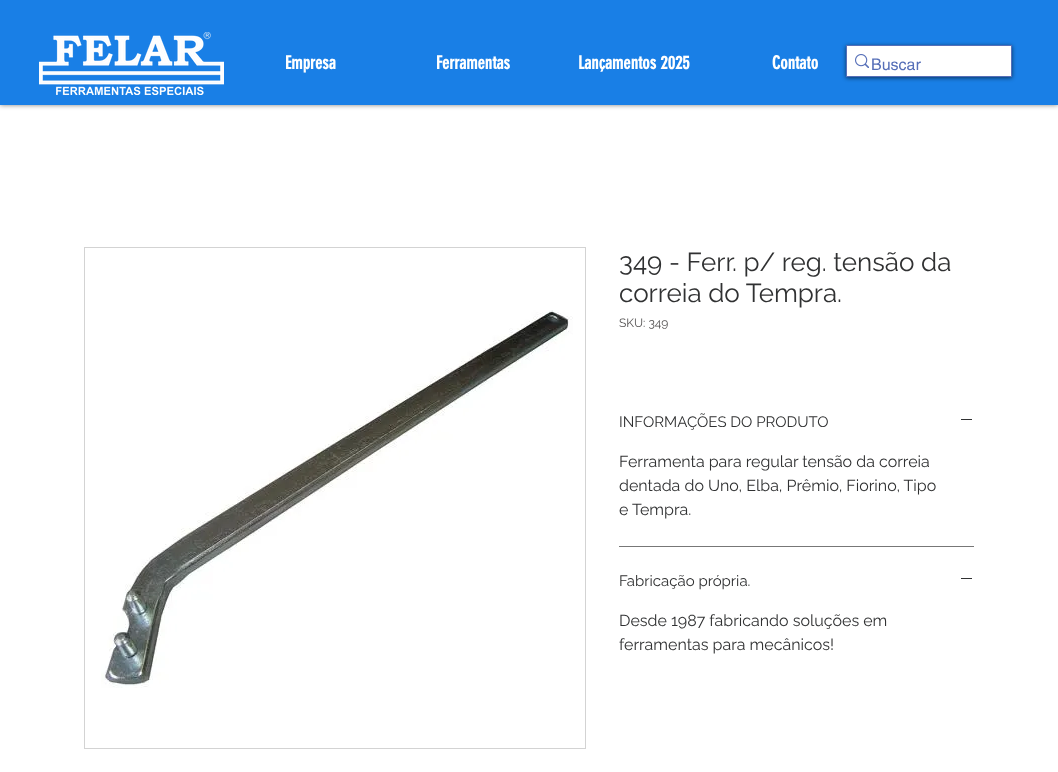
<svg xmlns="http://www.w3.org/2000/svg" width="1058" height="772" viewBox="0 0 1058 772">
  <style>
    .t1 { font: bold 18px 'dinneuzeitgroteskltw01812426'; fill: #fff; }
    .t2 { font: 16px helvetica; fill: #566fb8; }
    .t3 { font: 26px Raleway; fill: #303132; }
    .t4 { font: 12px Raleway; fill: #535151; }
    .t5 { font: 15px Raleway; fill: #303132; }
    .t6 { font: 16px Raleway; fill: #303132; }
  </style>
  <rect width="100%" height="100%" fill="#fff"/>
  <rect x="0" y="0" width="1058" height="105" fill="#00000080" filter="blur(2.5px)"/>
  <rect x="0" y="0" width="1058" height="105" fill="#197fe6"/>
  <image x="39" y="32" width="185" height="63" href="images/1.png"/>
  <text x="285" y="69" class="t1">Empresa</text>
  <text x="436" y="69" class="t1">Ferramentas</text>
  <text x="578" y="69" class="t1">Lançamentos 2025</text>
  <text x="772" y="69" class="t1">Contato</text>
  <rect x="846" y="46" width="166" height="32" fill="#00000099" filter="blur(2px)"/>
  <rect x="846.5" y="45.5" width="165" height="31" fill="none" stroke="#566fb8"/>
  <rect x="847" y="46" width="164" height="30" fill="#fff"/>
  <image x="855" y="54" width="14" height="14" href="images/2.png"/>
  <text x="871" y="70" class="t2">Buscar</text>
  <rect x="84.5" y="247.5" width="501" height="501" fill="none" stroke="#d3d3d3"/>
  <image x="101" y="310" width="472" height="378" href="images/3.png"/>
  <text x="619" y="271" class="t3">349 - Ferr. p/ reg. tensão da</text>
  <text x="619" y="302" class="t3">correia do Tempra.</text>
  <text x="619" y="327" class="t4">SKU: 349</text>
  <rect x="619" y="546" width="355" height="1" fill="#777"/>
  <text x="619" y="427" class="t5">INFORMAÇÕES DO PRODUTO</text>
  <rect x="961" y="419" width="11" height="1" fill="#303132"/>
  <text x="619" y="467" class="t6">Ferramenta para regular tensão da correia</text>
  <text x="619" y="491" class="t6">dentada do Uno, Elba, Prêmio, Fiorino, Tipo</text>
  <text x="619" y="515" class="t6">e Tempra.</text>
  <text x="619" y="586" class="t5">Fabricação própria.</text>
  <rect x="961" y="578" width="11" height="1" fill="#303132"/>
  <text x="619" y="626" class="t6">Desde 1987 fabricando soluções em</text>
  <text x="619" y="650" class="t6">ferramentas para mecânicos!</text>
</svg>
